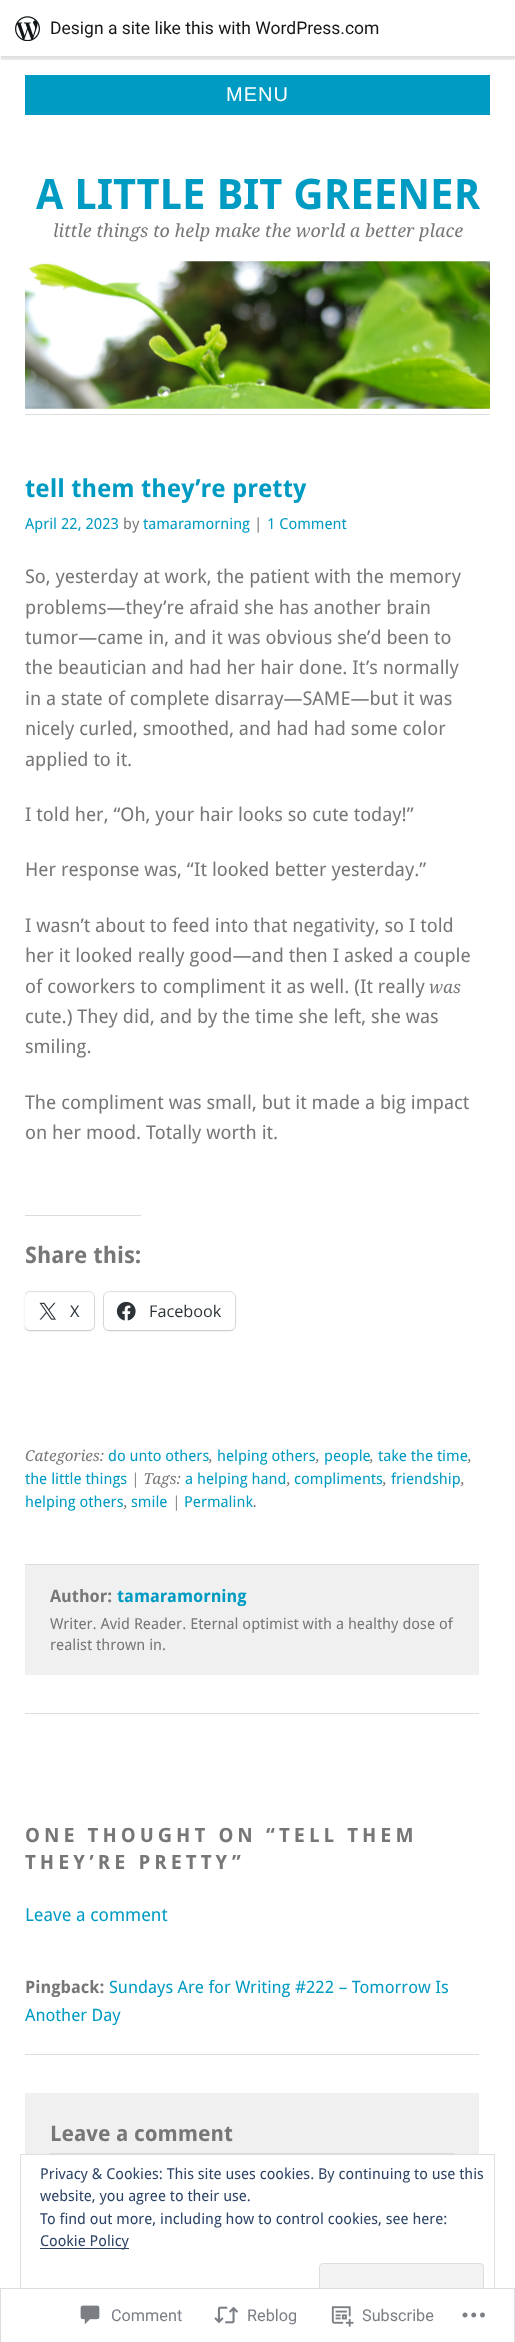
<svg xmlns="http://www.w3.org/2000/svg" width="515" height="2342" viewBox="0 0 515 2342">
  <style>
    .t1 { font: 17.5px Roboto; fill: #171717; }
    .t2 { font: 20px Liberation Sans; letter-spacing: 1px; fill: #fff; }
    .t3 { font: bold 42px Droid Sans; fill: #009bc2; }
    .t4 { font: italic 18px Droid Serif; fill: #777; }
    .t5 { font: bold 24.75px Droid Sans; fill: #009bc2; }
    .t6 { font: 15.2px Droid Sans; fill: #009bc2; }
    .t7 { font: 15.2px Droid Sans; fill: #777; }
    .t8 { font: 19px Droid Sans; fill: #777; }
    .t9 { font: italic 17.1px Droid Serif; fill: #777; }
    .t10 { font: bold 22.75px Droid Sans; fill: #777; }
    .t11 { font: 16.25px Open Sans; fill: #2c3338; }
    .t12 { font: italic 15.2px Droid Serif; fill: #777; }
    .t13 { font: bold 17.1px Droid Sans; fill: #777; }
    .t14 { font: bold 17.1px Droid Sans; fill: #009bc2; }
    .t15 { font: bold 19.75px Droid Sans; letter-spacing: 4px; fill: #777; }
    .t16 { font: 18px Droid Sans; fill: #009bc2; }
    .t17 { font: 17.1px Droid Sans; fill: #009bc2; }
    .t18 { font: bold 21.5px Droid Sans; fill: #777; }
    .t19 { font: 16.25px Roboto; fill: #7b7f85; }
    .t20 { font: 15px Droid Sans; fill: #2e4467; }
  </style>
  <defs>
    <clipPath id="clip1"><rect x="25" y="471" width="454" height="1242"/></clipPath>
  </defs>
  <rect width="100%" height="100%" fill="#fff"/>
  <rect x="0" y="1" width="515" height="57" fill="#0000000d" filter="blur(1px)"/>
  <path d="M1 56V60H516V4H515V56Z" fill="#00000014"/>
  <rect x="0" y="0" width="515" height="56" fill="#fff"/>
  <image x="15" y="16" width="25" height="25" href="images/1.png"/>
  <text x="50" y="34" class="t1">Design a site like this with WordPress.com</text>
  <rect x="25" y="75" width="465" height="40" fill="#009bc2"/>
  <text x="226" y="101" class="t2">MENU</text>
  <text x="36" y="209" class="t3">A LITTLE BIT GREENER</text>
  <text x="53" y="237" class="t4">little things to help make the world a better place</text>
  <image x="25" y="261" width="465" height="148" href="images/2.png"/>
  <rect x="25" y="414" width="465" height="1" fill="#ddd"/>
  <rect x="25" y="1713" width="454" height="1" fill="#ddd"/>
  <text x="25" y="497" class="t5">tell them they’re pretty</text>
  <text x="25" y="529" class="t6">April 22, 2023</text>
  <text x="123" y="529" class="t7">by</text>
  <text x="143" y="529" class="t6">tamaramorning</text>
  <text x="254" y="529" class="t7">|</text>
  <text x="267" y="529" class="t6">1 Comment</text>
  <text x="25" y="583" class="t8">So, yesterday at work, the patient with the memory</text>
  <text x="25" y="614" class="t8">problems—they’re afraid she has another brain</text>
  <text x="25" y="644" class="t8">tumor—came in, and it was obvious she’d been to</text>
  <text x="25" y="674" class="t8">the beautician and had her hair done. It’s normally</text>
  <text x="25" y="705" class="t8">in a state of complete disarray—SAME—but it was</text>
  <text x="25" y="735" class="t8">nicely curled, smoothed, and had had some color</text>
  <text x="25" y="766" class="t8">applied to it.</text>
  <text x="25" y="821" class="t8">I told her, “Oh, your hair looks so cute today!”</text>
  <text x="25" y="876" class="t8">Her response was, “It looked better yesterday.”</text>
  <text x="25" y="932" class="t8">I wasn’t about to feed into that negativity, so I told</text>
  <text x="25" y="962" class="t8">her it looked really good—and then I asked a couple</text>
  <text x="25" y="993" class="t8">of coworkers to compliment it as well. (It really</text>
  <text x="429" y="993" class="t9">was</text>
  <text x="25" y="1023" class="t8">cute.) They did, and by the time she left, she was</text>
  <text x="25" y="1053" class="t8">smiling.</text>
  <text x="25" y="1109" class="t8">The compliment was small, but it made a big impact</text>
  <text x="25" y="1139" class="t8">on her mood. Totally worth it.</text>
  <rect x="25" y="1215" width="116" height="1" fill="#dcdcde"/>
  <text x="25" y="1263" class="t10">Share this:</text>
  <g clip-path="url(#clip1)">
    <rect x="24.5" y="1291.5" width="70" height="39" rx="5.5" fill="none" stroke="#e0e0e0"/>
  </g>
  <rect x="25" y="1294" width="69" height="37" rx="5" fill="#0000001f" filter="blur(1px)"/>
  <rect x="25" y="1293" width="69" height="37" rx="5" fill="#fff"/>
  <image x="39" y="1302" width="17" height="18" href="images/3.png"/>
  <text x="70" y="1317" class="t11">X</text>
  <rect x="103.5" y="1291.5" width="132" height="39" rx="5.5" fill="none" stroke="#e0e0e0"/>
  <rect x="104" y="1294" width="131" height="37" rx="5" fill="#0000001f" filter="blur(1px)"/>
  <rect x="104" y="1293" width="131" height="37" rx="5" fill="#fff"/>
  <image x="116" y="1301" width="20" height="20" href="images/4.png"/>
  <text x="149" y="1317" class="t11">Facebook</text>
  <text x="25" y="1461" class="t12">Categories:</text>
  <text x="108" y="1461" class="t6">do unto others</text>
  <text x="209" y="1461" class="t12">,</text>
  <text x="217" y="1461" class="t6">helping others</text>
  <text x="316" y="1461" class="t12">,</text>
  <text x="324" y="1461" class="t6">people</text>
  <text x="370" y="1461" class="t12">,</text>
  <text x="378" y="1461" class="t6">take the time</text>
  <text x="468" y="1461" class="t12">,</text>
  <text x="25" y="1484" class="t6">the little things</text>
  <text x="131" y="1484" class="t12">| Tags:</text>
  <text x="185" y="1484" class="t6">a helping hand</text>
  <text x="287" y="1484" class="t12">,</text>
  <text x="294" y="1484" class="t6">compliments</text>
  <text x="383" y="1484" class="t12">,</text>
  <text x="391" y="1484" class="t6">friendship</text>
  <text x="461" y="1484" class="t12">,</text>
  <text x="25" y="1507" class="t6">helping others</text>
  <text x="124" y="1507" class="t12">,</text>
  <text x="131" y="1507" class="t6">smile</text>
  <text x="172" y="1507" class="t12">|</text>
  <text x="184" y="1507" class="t6">Permalink</text>
  <text x="253" y="1507" class="t12">.</text>
  <rect x="25" y="1565" width="454" height="110" fill="#f0f0f0"/>
  <rect x="25" y="1564" width="454" height="1" fill="#ddd"/>
  <text x="50" y="1602" class="t13">Author:</text>
  <text x="117" y="1602" class="t14">tamaramorning</text>
  <text x="50" y="1629" class="t7">Writer. Avid Reader. Eternal optimist with a healthy dose of</text>
  <text x="50" y="1650" class="t7">realist thrown in.</text>
  <text x="25" y="1842" class="t15">ONE THOUGHT ON “</text>
  <text x="279" y="1842" class="t15">TELL THEM</text>
  <text x="25" y="1869" class="t15">THEY’RE PRETTY”</text>
  <text x="25" y="1921" class="t16">Leave a comment</text>
  <rect x="25" y="2054" width="454" height="1" fill="#ddd"/>
  <text x="25" y="1993" class="t13">Pingback:</text>
  <text x="109" y="1993" class="t17">Sundays Are for Writing #222 – Tomorrow Is</text>
  <text x="25" y="2021" class="t17">Another Day</text>
  <rect x="25" y="2093" width="454" height="61" fill="#f0f0f0"/>
  <text x="50" y="2141" class="t18">Leave a comment</text>
  <rect x="50" y="2153" width="404" height="1" fill="#dcdcde"/>
  <rect x="20.5" y="2154.5" width="474" height="168" fill="none" stroke="#dedede"/>
  <rect x="319.5" y="2263.5" width="164" height="47" rx="3.5" fill="#f3f3f3" stroke="#dedede"/>
  <rect x="20" y="2288" width="475" height="35" fill="#fffffffa"/>
  <rect x="0.5" y="2288.5" width="514" height="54" fill="none" stroke="#dcdcdefa"/>
  <image x="80" y="2305" width="20" height="20" href="images/5.png"/>
  <text x="111" y="2321" class="t19">Comment</text>
  <image x="214" y="2306" width="25" height="18" href="images/6.png"/>
  <text x="247" y="2321" class="t19">Reblog</text>
  <image x="331" y="2306" width="23" height="21" href="images/7.png"/>
  <text x="362" y="2321" class="t19">Subscribe</text>
  <image x="462" y="2312" width="23" height="6" href="images/8.png"/>
  <text x="40" y="2179" class="t20">Privacy &amp; Cookies: This site uses cookies. By continuing to use this</text>
  <text x="40" y="2201" class="t20">website, you agree to their use.</text>
  <text x="40" y="2224" class="t20">To find out more, including how to control cookies, see here:</text>
  <rect x="40" y="2248" width="89" height="1" fill="#2e4467"/>
  <text x="40" y="2246" class="t20">Cookie Policy</text>
</svg>
